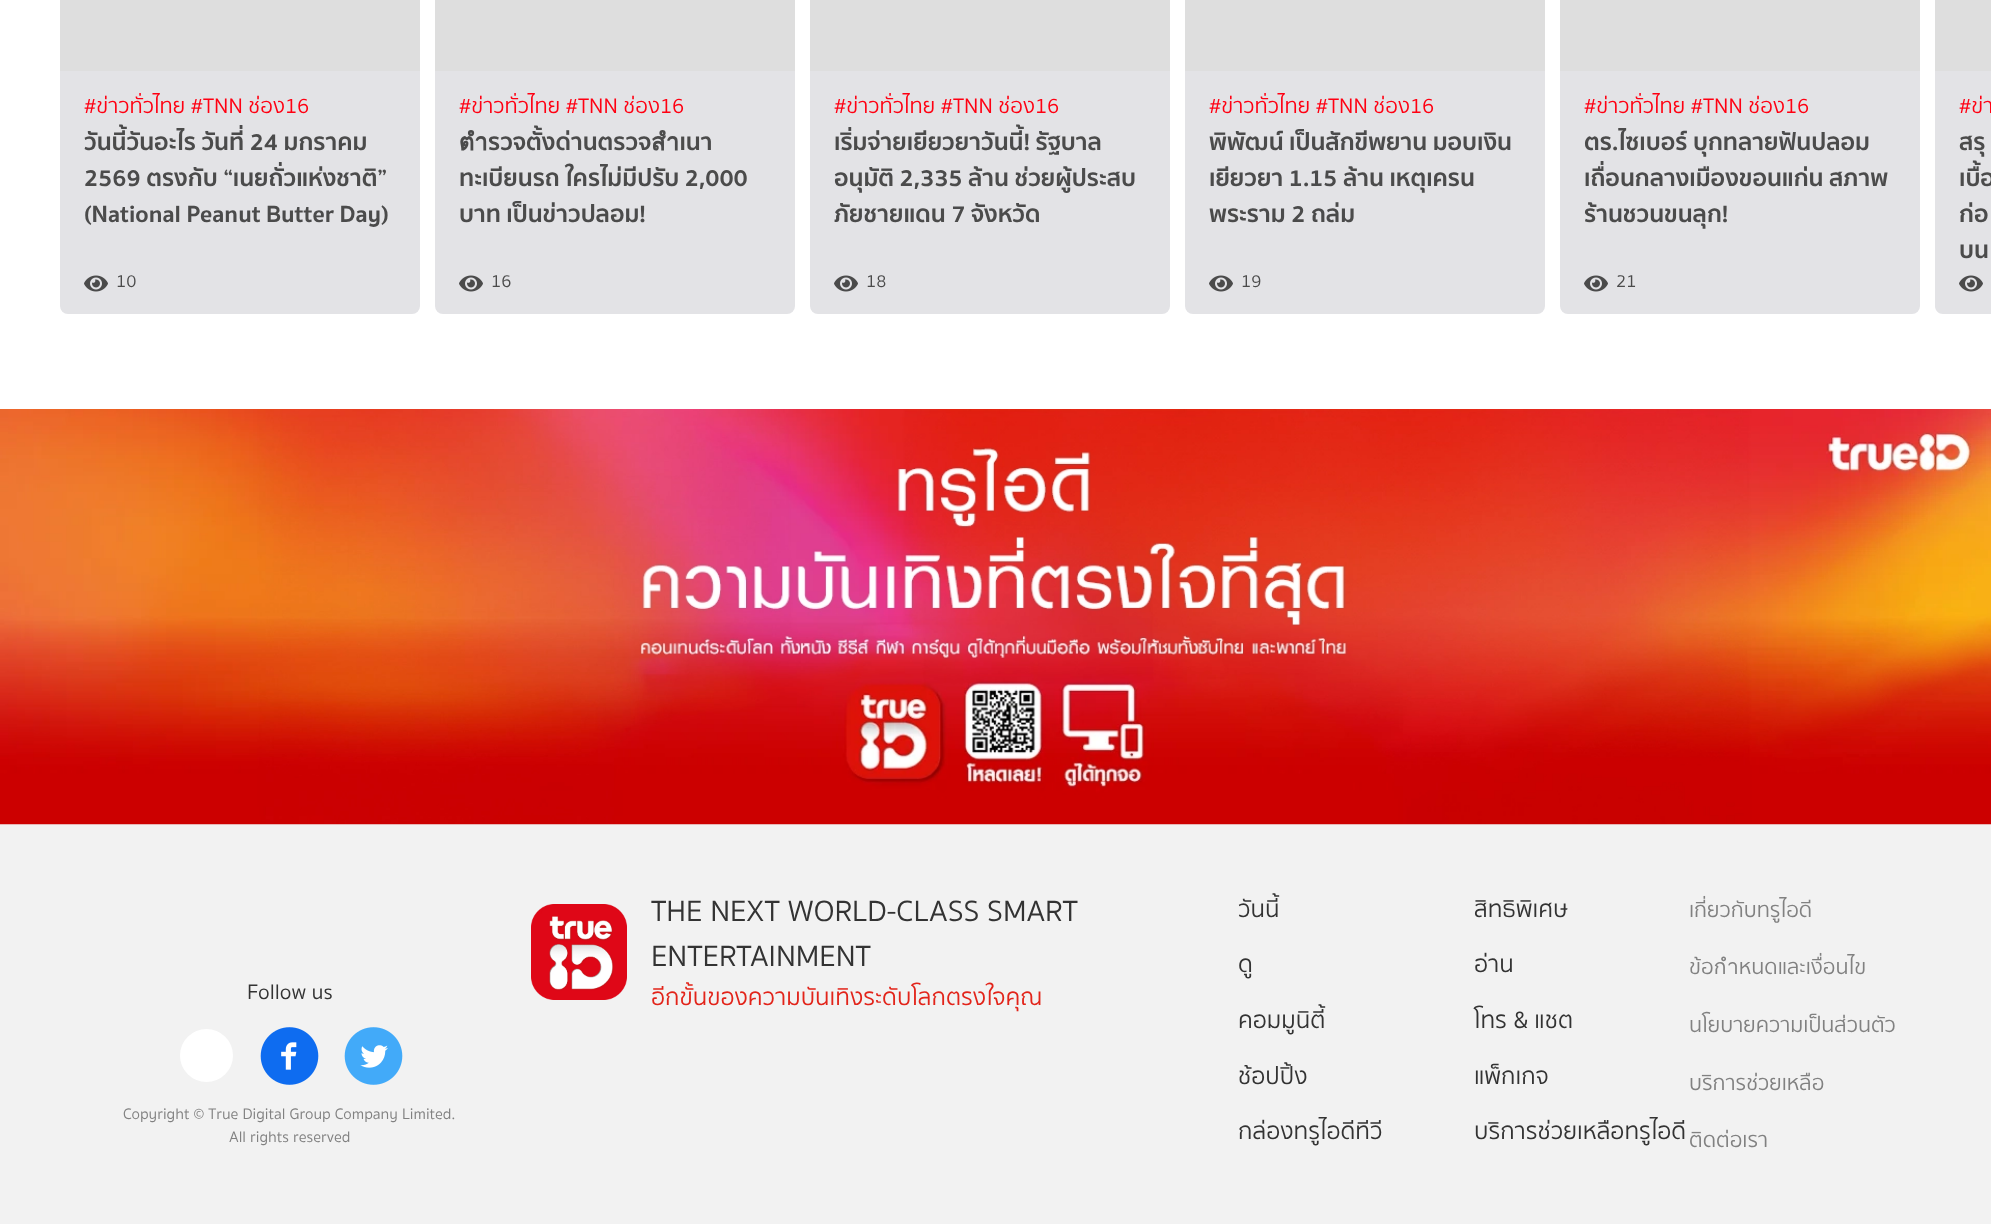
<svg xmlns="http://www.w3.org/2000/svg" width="1991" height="1224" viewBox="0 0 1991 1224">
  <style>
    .t1 { font: 21.6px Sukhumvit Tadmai; fill: #ff0012; }
    .t2 { font: bold 24px Sukhumvit Tadmai; fill: #4b4b4b; }
    .t3 { font: 18px Sukhumvit Tadmai; fill: #4b4b4b; }
    .t4 { font: 30px Sukhumvit Tadmai; fill: #333; }
    .t5 { font: 24px Sukhumvit Tadmai; fill: #e2241a; }
    .t6 { font: 24px Sukhumvit Tadmai; fill: #333; }
    .t7 { font: 21.6px Sukhumvit Tadmai; fill: #818181; }
    .t8 { font: 21.6px Sukhumvit Tadmai; fill: #333; }
    .t9 { font: 15.6px Sukhumvit Tadmai; fill: #818181; }
  </style>
  <rect width="100%" height="100%" fill="#fff"/>
  <rect x="60" y="-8" width="360" height="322" rx="8" fill="#e3e3e6"/>
  <rect x="60" y="0" width="360" height="71" fill="#dedede"/>
  <text x="84" y="113" class="t1">#ข่าวทั่วไทย #TNN ช่อง16</text>
  <text x="84" y="150" class="t2">วันนี้วันอะไร วันที่ 24 มกราคม</text>
  <text x="84" y="186" class="t2">2569 ตรงกับ “เนยถั่วแห่งชาติ”</text>
  <text x="84" y="222" class="t2">(National Peanut Butter Day)</text>
  <image x="84" y="275" width="24" height="17" href="images/1.png"/>
  <text x="116" y="287" class="t3">10</text>
  <rect x="435" y="-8" width="360" height="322" rx="8" fill="#e3e3e6"/>
  <rect x="435" y="0" width="360" height="71" fill="#dedede"/>
  <text x="459" y="113" class="t1">#ข่าวทั่วไทย #TNN ช่อง16</text>
  <text x="459" y="150" class="t2">ตำรวจตั้งด่านตรวจสำเนา</text>
  <text x="459" y="186" class="t2">ทะเบียนรถ ใครไม่มีปรับ 2,000</text>
  <text x="459" y="222" class="t2">บาท เป็นข่าวปลอม!</text>
  <image x="459" y="275" width="24" height="17" href="images/1.png"/>
  <text x="491" y="287" class="t3">16</text>
  <rect x="810" y="-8" width="360" height="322" rx="8" fill="#e3e3e6"/>
  <rect x="810" y="0" width="360" height="71" fill="#dedede"/>
  <text x="834" y="113" class="t1">#ข่าวทั่วไทย #TNN ช่อง16</text>
  <text x="834" y="150" class="t2">เริ่มจ่ายเยียวยาวันนี้! รัฐบาล</text>
  <text x="834" y="186" class="t2">อนุมัติ 2,335 ล้าน ช่วยผู้ประสบ</text>
  <text x="834" y="222" class="t2">ภัยชายแดน 7 จังหวัด</text>
  <image x="834" y="275" width="24" height="17" href="images/1.png"/>
  <text x="866" y="287" class="t3">18</text>
  <rect x="1185" y="-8" width="360" height="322" rx="8" fill="#e3e3e6"/>
  <rect x="1185" y="0" width="360" height="71" fill="#dedede"/>
  <text x="1209" y="113" class="t1">#ข่าวทั่วไทย #TNN ช่อง16</text>
  <text x="1209" y="150" class="t2">พิพัฒน์ เป็นสักขีพยาน มอบเงิน</text>
  <text x="1209" y="186" class="t2">เยียวยา 1.15 ล้าน เหตุเครน</text>
  <text x="1209" y="222" class="t2">พระราม 2 ถล่ม</text>
  <image x="1209" y="275" width="24" height="17" href="images/1.png"/>
  <text x="1241" y="287" class="t3">19</text>
  <rect x="1560" y="-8" width="360" height="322" rx="8" fill="#e3e3e6"/>
  <rect x="1560" y="0" width="360" height="71" fill="#dedede"/>
  <text x="1584" y="113" class="t1">#ข่าวทั่วไทย #TNN ช่อง16</text>
  <text x="1584" y="150" class="t2">ตร.ไซเบอร์ บุกทลายฟันปลอม</text>
  <text x="1584" y="186" class="t2">เถื่อนกลางเมืองขอนแก่น สภาพ</text>
  <text x="1584" y="222" class="t2">ร้านชวนขนลุก!</text>
  <image x="1584" y="275" width="24" height="17" href="images/1.png"/>
  <text x="1616" y="287" class="t3">21</text>
  <path d="M1943-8H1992V314H1943C1938.5 314 1935 310.5 1935 306V0C1935-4.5 1938.5-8 1943-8Z" fill="#e3e3e6"/>
  <rect x="1935" y="0" width="56" height="71" fill="#dedede"/>
  <text x="1959" y="113" class="t1">#ข่า</text>
  <text x="1959" y="150" class="t2">สรุ</text>
  <text x="1959" y="186" class="t2">เบื้อ</text>
  <text x="1959" y="222" class="t2">ก่อ</text>
  <text x="1959" y="258" class="t2">บน</text>
  <image x="1959" y="275" width="24" height="17" href="images/1.png"/>
  <rect x="0" y="824" width="1991" height="400" fill="#f2f2f2"/>
  <image x="0" y="409" width="1991" height="416" href="images/2.png"/>
  <image x="531" y="904" width="96" height="96" href="images/3.png"/>
  <text x="651" y="921" class="t4">THE NEXT WORLD-CLASS SMART</text>
  <text x="651" y="966" class="t4">ENTERTAINMENT</text>
  <text x="651" y="1005" class="t5">อีกขั้นของความบันเทิงระดับโลกตรงใจคุณ</text>
  <text x="1238" y="917" class="t6">วันนี้</text>
  <text x="1474" y="917" class="t6">สิทธิพิเศษ</text>
  <text x="1238" y="972" class="t6">ดู</text>
  <text x="1474" y="972" class="t6">อ่าน</text>
  <text x="1238" y="1028" class="t6">คอมมูนิตี้</text>
  <text x="1474" y="1028" class="t6">โทร &amp; แชต</text>
  <text x="1238" y="1084" class="t6">ช้อปปิ้ง</text>
  <text x="1474" y="1084" class="t6">แพ็กเกจ</text>
  <text x="1238" y="1139" class="t6">กล่องทรูไอดีทีวี</text>
  <text x="1474" y="1139" class="t6">บริการช่วยเหลือทรูไอดี</text>
  <text x="1689" y="917" class="t7">เกี่ยวกับทรูไอดี</text>
  <text x="1689" y="974" class="t7">ข้อกำหนดและเงื่อนไข</text>
  <text x="1689" y="1032" class="t7">นโยบายความเป็นส่วนตัว</text>
  <text x="1689" y="1090" class="t7">บริการช่วยเหลือ</text>
  <text x="1689" y="1147" class="t7">ติดต่อเรา</text>
  <text x="247" y="999" class="t8">Follow us</text>
  <circle cx="206.5" cy="1055.5" r="26.5" fill="#fff"/>
  <circle cx="290.5" cy="1055.5" r="26.5" fill="#fff"/>
  <image x="260" y="1027" width="59" height="58" href="images/4.png"/>
  <circle cx="374.5" cy="1055.5" r="26.5" fill="#fff"/>
  <image x="344" y="1027" width="59" height="58" href="images/5.png"/>
  <text x="123" y="1119" class="t9">Copyright © True Digital Group Company Limited.</text>
  <text x="229" y="1142" class="t9">All rights reserved</text>
</svg>
